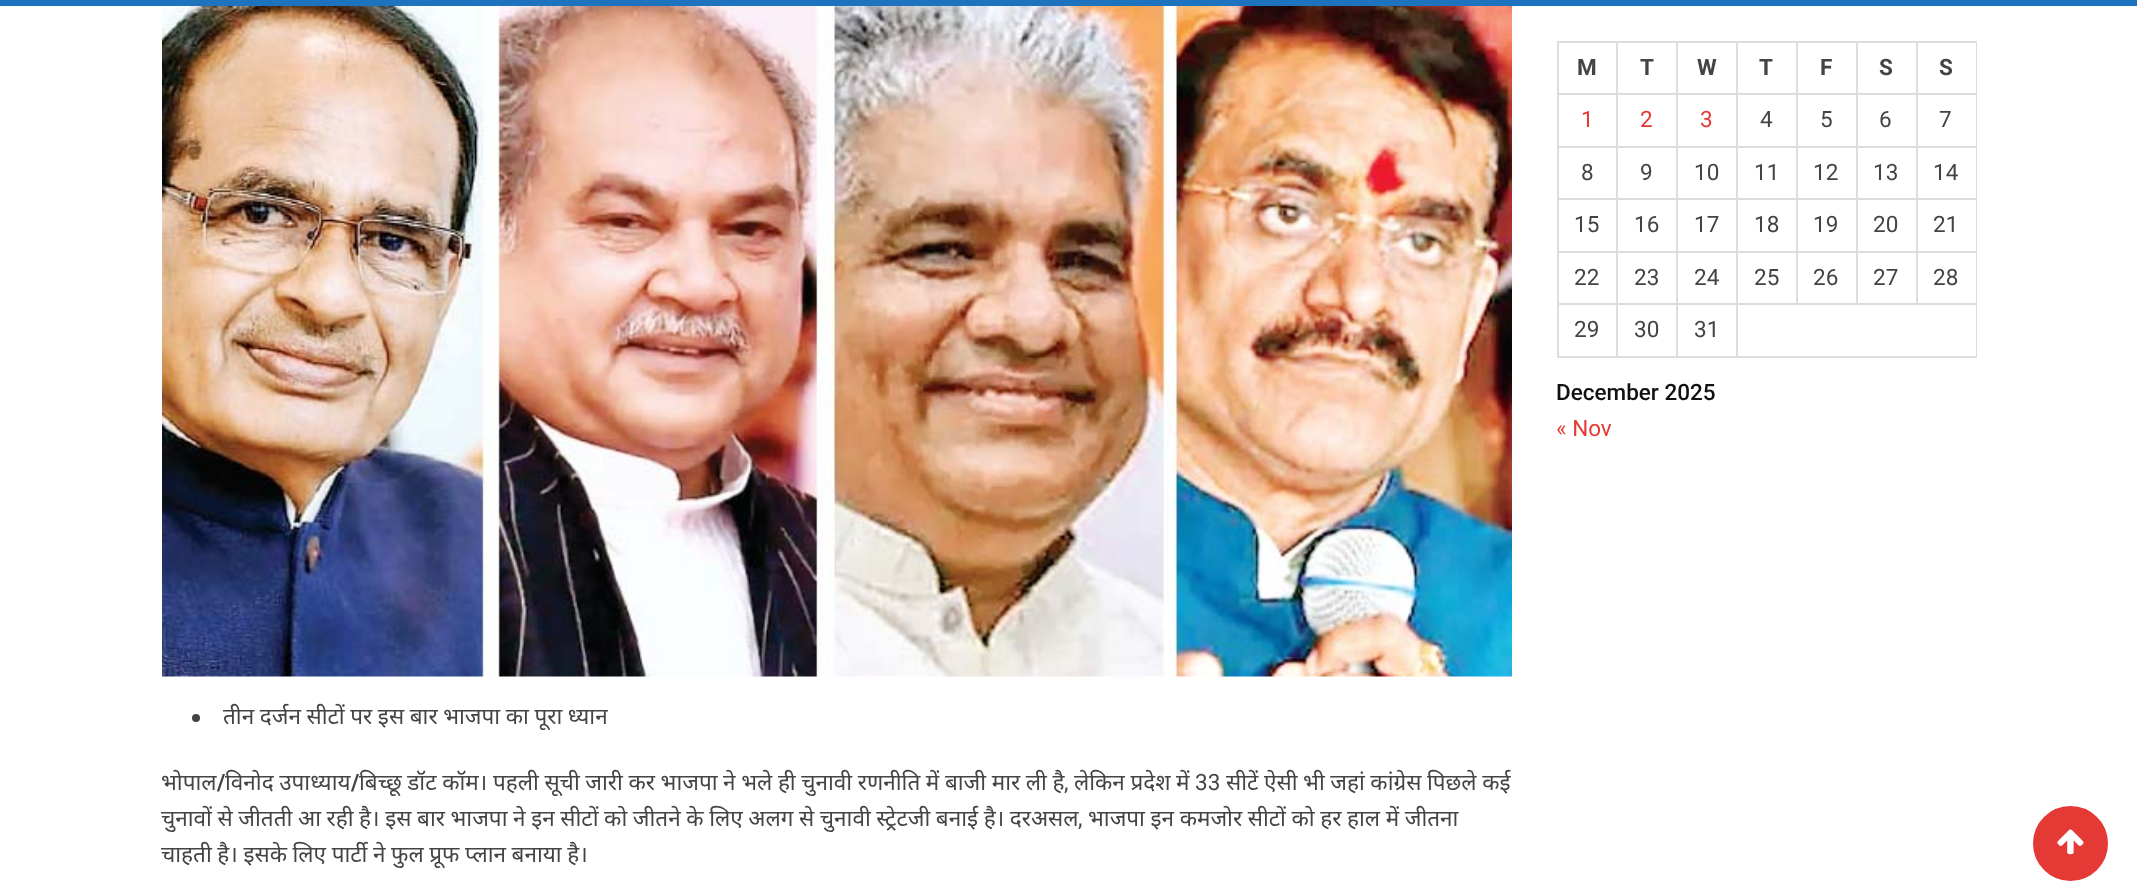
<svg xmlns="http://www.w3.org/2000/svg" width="2137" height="888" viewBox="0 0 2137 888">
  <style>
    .t1 { font: bold 22.5px Roboto; fill: #444; }
    .t2 { font: 22.5px Roboto; fill: #e53935; }
    .t3 { font: 22.5px Roboto; fill: #444; }
    .t4 { font: 500 22.5px Roboto; fill: #111; }
    .t5 { font: 22.5px Noto Sans; fill: #444; }
  </style>
  <rect width="100%" height="100%" fill="#fff"/>
  <rect x="0" y="0" width="2137" height="6" fill="#1e73be"/>
  <rect x="1916" y="41" width="61" height="2" fill="#ddd"/>
  <rect x="1916" y="93" width="61" height="2" fill="#ddd"/>
  <rect x="1916" y="146" width="61" height="2" fill="#ddd"/>
  <rect x="1916" y="198" width="61" height="2" fill="#ddd"/>
  <rect x="1916" y="251" width="61" height="2" fill="#ddd"/>
  <rect x="1736" y="303" width="241" height="2" fill="#ddd"/>
  <rect x="1916" y="251" width="2" height="54" fill="#ddd"/>
  <rect x="1856" y="251" width="61" height="2" fill="#ddd"/>
  <rect x="1916" y="198" width="2" height="54" fill="#ddd"/>
  <rect x="1856" y="198" width="61" height="2" fill="#ddd"/>
  <rect x="1916" y="146" width="2" height="54" fill="#ddd"/>
  <rect x="1856" y="146" width="61" height="2" fill="#ddd"/>
  <rect x="1916" y="93" width="2" height="54" fill="#ddd"/>
  <rect x="1856" y="93" width="61" height="2" fill="#ddd"/>
  <rect x="1916" y="41" width="2" height="54" fill="#ddd"/>
  <rect x="1856" y="41" width="61" height="2" fill="#ddd"/>
  <rect x="1856" y="251" width="2" height="54" fill="#ddd"/>
  <rect x="1796" y="251" width="61" height="2" fill="#ddd"/>
  <rect x="1856" y="198" width="2" height="54" fill="#ddd"/>
  <rect x="1796" y="198" width="61" height="2" fill="#ddd"/>
  <rect x="1856" y="146" width="2" height="54" fill="#ddd"/>
  <rect x="1796" y="146" width="61" height="2" fill="#ddd"/>
  <rect x="1856" y="93" width="2" height="54" fill="#ddd"/>
  <rect x="1796" y="93" width="61" height="2" fill="#ddd"/>
  <rect x="1856" y="41" width="2" height="54" fill="#ddd"/>
  <rect x="1796" y="41" width="61" height="2" fill="#ddd"/>
  <rect x="1796" y="251" width="2" height="54" fill="#ddd"/>
  <rect x="1736" y="251" width="61" height="2" fill="#ddd"/>
  <rect x="1796" y="198" width="2" height="54" fill="#ddd"/>
  <rect x="1736" y="198" width="61" height="2" fill="#ddd"/>
  <rect x="1796" y="146" width="2" height="54" fill="#ddd"/>
  <rect x="1736" y="146" width="61" height="2" fill="#ddd"/>
  <rect x="1796" y="93" width="2" height="54" fill="#ddd"/>
  <rect x="1736" y="93" width="61" height="2" fill="#ddd"/>
  <rect x="1796" y="41" width="2" height="54" fill="#ddd"/>
  <rect x="1736" y="41" width="61" height="2" fill="#ddd"/>
  <rect x="1976" y="303" width="1" height="54" fill="#ddd"/>
  <rect x="1736" y="356" width="241" height="2" fill="#ddd"/>
  <rect x="1736" y="303" width="2" height="54" fill="#ddd"/>
  <rect x="1676" y="303" width="61" height="2" fill="#ddd"/>
  <rect x="1736" y="251" width="2" height="54" fill="#ddd"/>
  <rect x="1676" y="251" width="61" height="2" fill="#ddd"/>
  <rect x="1736" y="198" width="2" height="54" fill="#ddd"/>
  <rect x="1676" y="198" width="61" height="2" fill="#ddd"/>
  <rect x="1736" y="146" width="2" height="54" fill="#ddd"/>
  <rect x="1676" y="146" width="61" height="2" fill="#ddd"/>
  <rect x="1736" y="93" width="2" height="54" fill="#ddd"/>
  <rect x="1676" y="93" width="61" height="2" fill="#ddd"/>
  <rect x="1736" y="41" width="2" height="54" fill="#ddd"/>
  <rect x="1676" y="41" width="61" height="2" fill="#ddd"/>
  <rect x="1676" y="356" width="61" height="2" fill="#ddd"/>
  <rect x="1676" y="303" width="2" height="54" fill="#ddd"/>
  <rect x="1616" y="303" width="61" height="2" fill="#ddd"/>
  <rect x="1676" y="251" width="2" height="54" fill="#ddd"/>
  <rect x="1616" y="251" width="61" height="2" fill="#ddd"/>
  <rect x="1676" y="198" width="2" height="54" fill="#ddd"/>
  <rect x="1616" y="198" width="61" height="2" fill="#ddd"/>
  <rect x="1676" y="146" width="2" height="54" fill="#ddd"/>
  <rect x="1616" y="146" width="61" height="2" fill="#ddd"/>
  <rect x="1676" y="93" width="2" height="54" fill="#ddd"/>
  <rect x="1616" y="93" width="61" height="2" fill="#ddd"/>
  <rect x="1676" y="41" width="2" height="54" fill="#ddd"/>
  <rect x="1616" y="41" width="61" height="2" fill="#ddd"/>
  <rect x="1616" y="356" width="61" height="2" fill="#ddd"/>
  <rect x="1616" y="303" width="2" height="54" fill="#ddd"/>
  <rect x="1557" y="303" width="60" height="2" fill="#ddd"/>
  <rect x="1616" y="251" width="2" height="54" fill="#ddd"/>
  <rect x="1557" y="251" width="60" height="2" fill="#ddd"/>
  <rect x="1616" y="198" width="2" height="54" fill="#ddd"/>
  <rect x="1557" y="198" width="60" height="2" fill="#ddd"/>
  <rect x="1616" y="146" width="2" height="54" fill="#ddd"/>
  <rect x="1557" y="146" width="60" height="2" fill="#ddd"/>
  <rect x="1616" y="93" width="2" height="54" fill="#ddd"/>
  <rect x="1557" y="93" width="60" height="2" fill="#ddd"/>
  <rect x="1616" y="41" width="2" height="54" fill="#ddd"/>
  <rect x="1557" y="41" width="60" height="2" fill="#ddd"/>
  <rect x="1557" y="356" width="60" height="2" fill="#ddd"/>
  <rect x="1557" y="303" width="2" height="54" fill="#ddd"/>
  <rect x="1557" y="251" width="2" height="54" fill="#ddd"/>
  <rect x="1557" y="198" width="2" height="54" fill="#ddd"/>
  <rect x="1557" y="146" width="2" height="54" fill="#ddd"/>
  <rect x="1557" y="93" width="2" height="54" fill="#ddd"/>
  <rect x="1557" y="41" width="2" height="54" fill="#ddd"/>
  <text x="1577" y="75" class="t1">M</text>
  <text x="1640" y="75" class="t1">T</text>
  <text x="1697" y="75" class="t1">W</text>
  <text x="1759" y="75" class="t1">T</text>
  <text x="1820" y="75" class="t1">F</text>
  <text x="1879" y="75" class="t1">S</text>
  <rect x="1976" y="251" width="1" height="54" fill="#ddd"/>
  <rect x="1976" y="198" width="1" height="54" fill="#ddd"/>
  <rect x="1976" y="146" width="1" height="54" fill="#ddd"/>
  <rect x="1976" y="93" width="1" height="54" fill="#ddd"/>
  <rect x="1976" y="41" width="1" height="54" fill="#ddd"/>
  <text x="1939" y="75" class="t1">S</text>
  <text x="1581" y="127" class="t2">1</text>
  <text x="1640" y="127" class="t2">2</text>
  <text x="1700" y="127" class="t2">3</text>
  <text x="1760" y="127" class="t3">4</text>
  <text x="1820" y="127" class="t3">5</text>
  <text x="1879" y="127" class="t3">6</text>
  <text x="1939" y="127" class="t3">7</text>
  <text x="1581" y="180" class="t3">8</text>
  <text x="1640" y="180" class="t3">9</text>
  <text x="1694" y="180" class="t3">10</text>
  <text x="1754" y="180" class="t3">11</text>
  <text x="1813" y="180" class="t3">12</text>
  <text x="1873" y="180" class="t3">13</text>
  <text x="1933" y="180" class="t3">14</text>
  <text x="1574" y="232" class="t3">15</text>
  <text x="1634" y="232" class="t3">16</text>
  <text x="1694" y="232" class="t3">17</text>
  <text x="1754" y="232" class="t3">18</text>
  <text x="1813" y="232" class="t3">19</text>
  <text x="1873" y="232" class="t3">20</text>
  <text x="1933" y="232" class="t3">21</text>
  <text x="1574" y="285" class="t3">22</text>
  <text x="1634" y="285" class="t3">23</text>
  <text x="1694" y="285" class="t3">24</text>
  <text x="1754" y="285" class="t3">25</text>
  <text x="1813" y="285" class="t3">26</text>
  <text x="1873" y="285" class="t3">27</text>
  <text x="1933" y="285" class="t3">28</text>
  <text x="1574" y="337" class="t3">29</text>
  <text x="1634" y="337" class="t3">30</text>
  <text x="1694" y="337" class="t3">31</text>
  <text x="1556" y="400" class="t4">December 2025</text>
  <text x="1556" y="436" class="t2">« Nov</text>
  <image x="162" y="6" width="1350" height="671" href="images/1.png"/>
  <circle cx="196" cy="718" r="4" fill="#444"/>
  <text x="223" y="724" word-spacing="-0.25" class="t5">तीन दर्जन सीटों पर इस बार भाजपा का पूरा ध्यान</text>
  <text x="161" y="790" class="t5">भोपाल</text>
  <text x="217" y="790" class="t1">/</text>
  <text x="225" y="790" word-spacing="-0.25" class="t5">विनोद उपाध्याय</text>
  <text x="351" y="790" class="t1">/</text>
  <text x="359" y="790" word-spacing="-0.25" class="t5">बिच्छू डॉट कॉम।</text>
  <text x="493" y="790" word-spacing="-0.25" class="t5">पहली सूची जारी कर भाजपा ने भले ही चुनावी रणनीति में बाजी मार ली है</text>
  <text x="1064" y="790" class="t3">,</text>
  <text x="1074" y="790" word-spacing="-0.25" class="t5">लेकिन प्रदेश में</text>
  <text x="1195" y="790" class="t3">33</text>
  <text x="1226" y="790" word-spacing="-0.25" class="t5">सीटें ऐसी भी जहां कांग्रेस पिछले कई</text>
  <text x="161" y="826" word-spacing="-0.25" class="t5">चुनावों से जीतती आ रही है। इस बार भाजपा ने इन सीटों को जीतने के लिए अलग से चुनावी स्ट्रेटजी बनाई है। दरअसल</text>
  <text x="1078" y="826" class="t3">,</text>
  <text x="1088" y="826" word-spacing="-0.25" class="t5">भाजपा इन कमजोर सीटों को हर हाल में जीतना</text>
  <text x="161" y="862" word-spacing="-0.25" class="t5">चाहती है। इसके लिए पार्टी ने फुल प्रूफ प्लान बनाया है।</text>
  <circle cx="2070.5" cy="843.5" r="36" fill="#e53935" stroke="#e53935" stroke-width="3"/>
  <image x="2057" y="829" width="27" height="26" href="images/2.png"/>
</svg>
